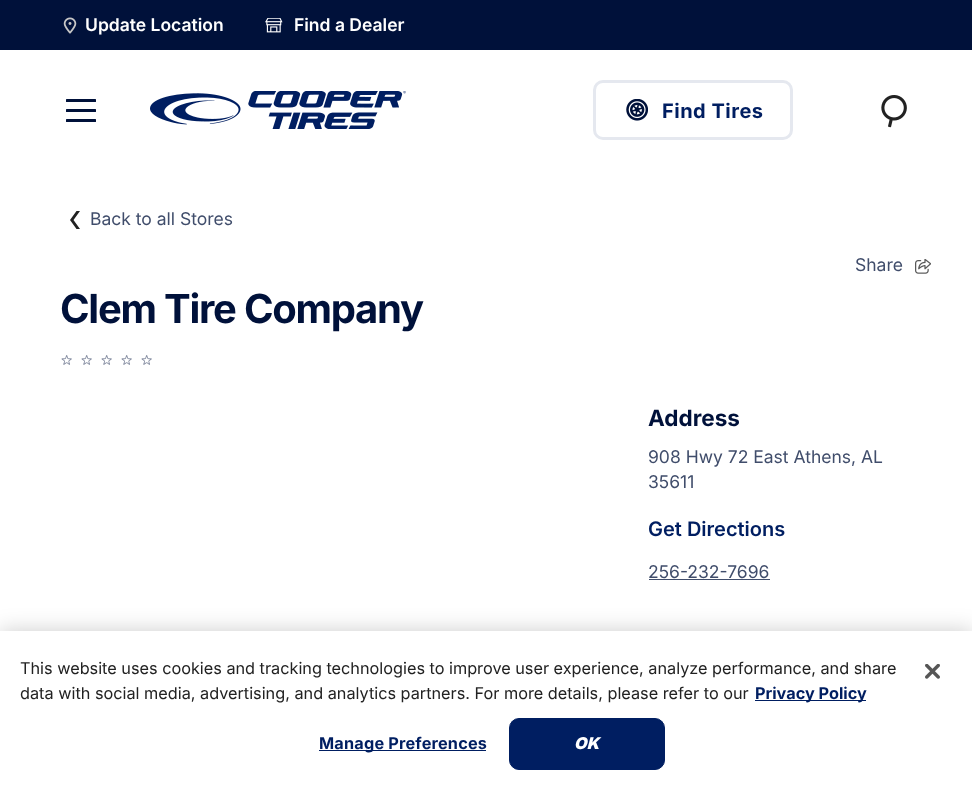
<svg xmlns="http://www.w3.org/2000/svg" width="972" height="789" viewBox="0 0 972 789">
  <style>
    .t1 { font: 600 17.5px Inter; fill: #fff; }
    .t2 { font: bold 20px Inter; letter-spacing: 0.5px; fill: #001e61; }
    .t3 { font: 17.5px Inter; fill: #404d6b; }
    .t4 { font: bold 40px Inter; letter-spacing: -1.25px; fill: #00113a; }
    .t5 { font: bold 22.5px Inter; fill: #00113a; }
    .t6 { font: 600 20px Inter; fill: #001e61; }
    .t7 { font: 16.25px Inter; fill: #222; }
    .t8 { font: bold 16.25px Inter; fill: #001e61; }
    .t9 { font: bold 16.25px Inter; letter-spacing: 0.2px; fill: #001e61; }
    .t10 { font: italic 900 16.25px Inter; letter-spacing: 0.2px; fill: #fff; }
  </style>
  <rect width="100%" height="100%" fill="#fff"/>
  <rect x="0" y="0" width="972" height="50" fill="#00113a"/>
  <image x="63" y="17" width="14" height="17" href="images/1.png"/>
  <text x="85" y="31" class="t1">Update Location</text>
  <image x="265" y="18" width="18" height="15" href="images/2.png"/>
  <text x="294" y="31" class="t1">Find a Dealer</text>
  <rect x="66" y="99" width="30" height="3" rx="0.5" fill="#00113a"/>
  <rect x="66" y="109" width="30" height="3" rx="0.5" fill="#00113a"/>
  <rect x="66" y="119" width="30" height="3" rx="0.5" fill="#00113a"/>
  <image x="150" y="91" width="256" height="38" href="images/3.png"/>
  <rect x="594.5" y="81.5" width="197" height="57" rx="8.5" fill="none" stroke="#e5e8ef" stroke-width="3"/>
  <image x="626" y="99" width="22" height="22" href="images/4.png"/>
  <text x="662" y="118" class="t2">Find Tires</text>
  <image x="881" y="95" width="26" height="33" href="images/5.png"/>
  <path d="M80 211H76.5L70 220L76.5 229H80L73.5 220Z" fill="#222"/>
  <text x="90" y="225" class="t3">Back to all Stores</text>
  <text x="855" y="271" class="t3">Share</text>
  <image x="915" y="259" width="16" height="15" href="images/6.png"/>
  <text x="60" y="323" class="t4">Clem Tire Company</text>
  <image x="61" y="355" width="11" height="10" href="images/7.png"/>
  <image x="81" y="355" width="11" height="10" href="images/7.png"/>
  <image x="101" y="355" width="11" height="10" href="images/7.png"/>
  <image x="121" y="355" width="11" height="10" href="images/7.png"/>
  <image x="141" y="355" width="11" height="10" href="images/7.png"/>
  <text x="648" y="426" class="t5">Address</text>
  <text x="648" y="463" class="t3">908 Hwy 72 East Athens, AL</text>
  <text x="648" y="488" class="t3">35611</text>
  <text x="648" y="536" class="t6">Get Directions</text>
  <text x="648" y="578" class="t3">256-232-7696</text>
  <rect x="649" y="579" width="121" height="1" fill="#404d6b"/>
  <rect x="0" y="631" width="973" height="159" fill="#00000033" filter="blur(11px)"/>
  <rect x="0" y="631" width="972" height="158" fill="#fff"/>
  <text x="20" y="674" class="t7">This website uses cookies and tracking technologies to improve user experience, analyze performance, and share</text>
  <text x="20" y="699" class="t7">data with social media, advertising, and analytics partners. For more details, please refer to our</text>
  <rect x="755" y="700" width="111" height="1" fill="#001e61"/>
  <text x="755" y="699" class="t8">Privacy Policy</text>
  <rect x="319" y="750" width="167" height="1" fill="#001e61"/>
  <text x="319" y="749" class="t9">Manage Preferences</text>
  <rect x="509.5" y="718.5" width="155" height="51" rx="9.5" fill="#001e61" stroke="#001e61"/>
  <text x="574" y="749" class="t10">OK</text>
  <image x="925" y="664" width="15" height="15" href="images/8.png"/>
</svg>
